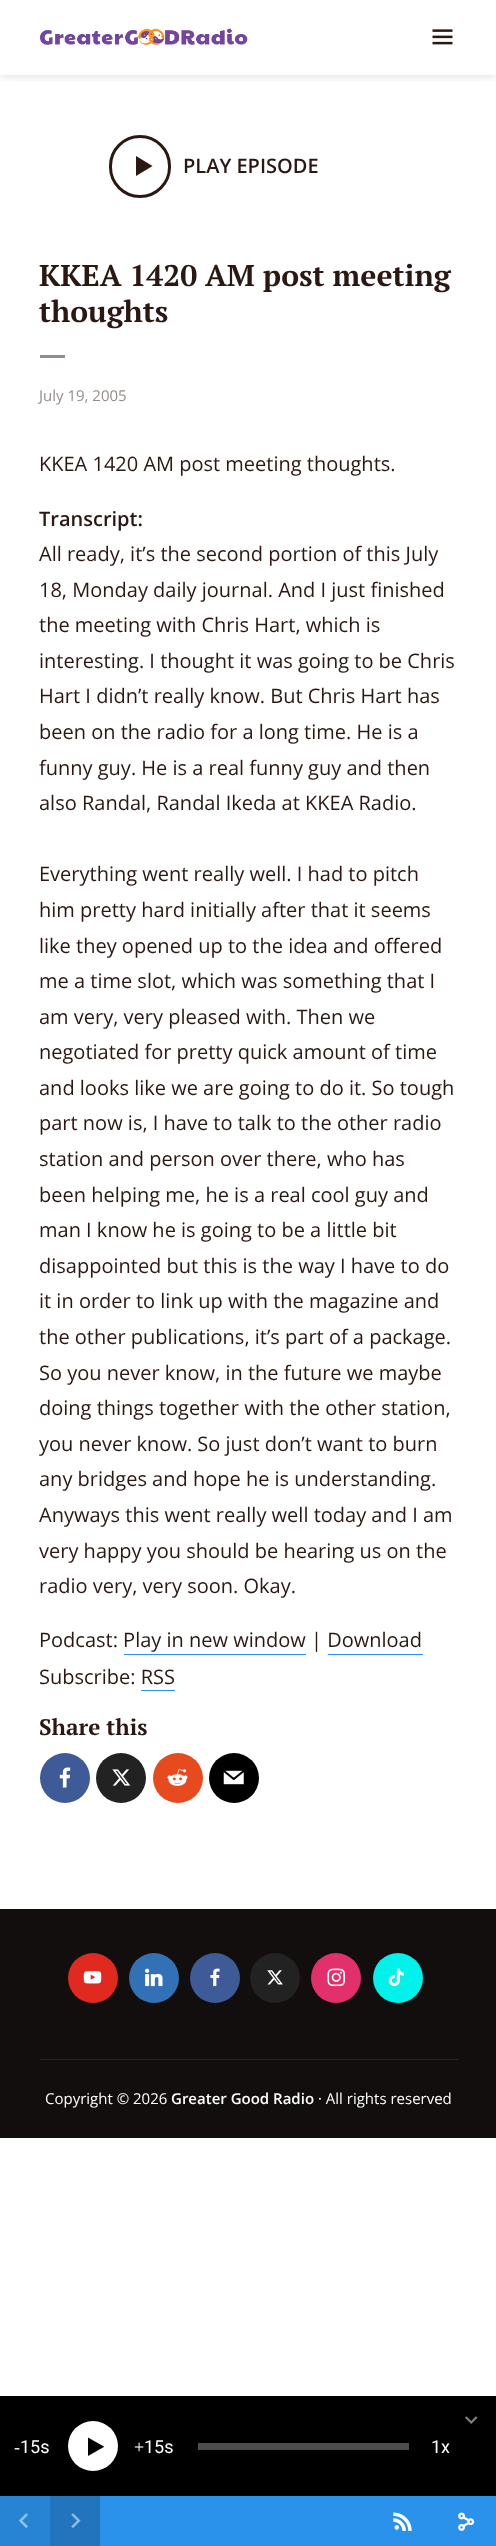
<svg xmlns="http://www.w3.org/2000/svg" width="496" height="2546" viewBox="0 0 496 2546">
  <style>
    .t1 { font: 600 20px Open Sans; fill: #2b1813; }
    .t2 { font: bold 30px PT Serif; fill: #2b1813; }
    .t3 { font: 15px Open Sans; fill: #958c89; }
    .t4 { font: 20px Open Sans; fill: #2b1813; }
    .t5 { font: bold 22.5px PT Serif; fill: #2b1813; }
    .t6 { font: 15px Open Sans; fill: #fff; }
    .t7 { font: 600 15px Open Sans; fill: #fff; }
    .t8 { font: 25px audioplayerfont; fill: #808080; }
    .t9 { font: 18px Liberation Serif; fill: #fff; }
    .t10 { font: 18px Roboto; fill: #fff; }
    .t11 { font: 28px audioplayerfont; fill: #000; }
  </style>
  <defs>
    <clipPath id="clip1"><rect x="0" y="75" width="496" height="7"/></clipPath>
  </defs>
  <rect width="100%" height="100%" fill="#fff"/>
  <g clip-path="url(#clip1)">
    <rect x="0" y="0" width="496" height="75" fill="#00000026" filter="blur(6px)"/>
  </g>
  <image x="40" y="28" width="208" height="17" href="images/1.png"/>
  <image x="432" y="29" width="21" height="16" href="images/2.png"/>
  <rect x="110.5" y="136.5" width="59" height="60" rx="29.5" fill="none" stroke="#2b1813" stroke-width="3"/>
  <path d="M136 156L152.5 166L136 176Z" fill="#2b1813"/>
  <text x="183" y="173" class="t1">PLAY EPISODE</text>
  <text x="39" y="286" class="t2">KKEA 1420 AM post meeting</text>
  <text x="39" y="322" class="t2">thoughts</text>
  <rect x="40" y="355" width="25" height="3" fill="#958c89"/>
  <text x="39" y="401" class="t3">July 19, 2005</text>
  <text x="39" y="471" class="t4">KKEA 1420 AM post meeting thoughts.</text>
  <text x="39" y="526" class="t1">Transcript:</text>
  <text x="39" y="561" class="t4">All ready, it’s the second portion of this July</text>
  <text x="39" y="597" class="t4">18, Monday daily journal. And I just finished</text>
  <text x="39" y="632" class="t4">the meeting with Chris Hart, which is</text>
  <text x="39" y="668" class="t4">interesting. I thought it was going to be Chris</text>
  <text x="39" y="703" class="t4">Hart I didn’t really know. But Chris Hart has</text>
  <text x="39" y="739" class="t4">been on the radio for a long time. He is a</text>
  <text x="39" y="775" class="t4">funny guy. He is a real funny guy and then</text>
  <text x="39" y="810" class="t4">also Randal, Randal Ikeda at KKEA Radio.</text>
  <text x="39" y="881" class="t4">Everything went really well. I had to pitch</text>
  <text x="39" y="917" class="t4">him pretty hard initially after that it seems</text>
  <text x="39" y="953" class="t4">like they opened up to the idea and offered</text>
  <text x="39" y="988" class="t4">me a time slot, which was something that I</text>
  <text x="39" y="1024" class="t4">am very, very pleased with. Then we</text>
  <text x="39" y="1059" class="t4">negotiated for pretty quick amount of time</text>
  <text x="39" y="1095" class="t4">and looks like we are going to do it. So tough</text>
  <text x="39" y="1130" class="t4">part now is, I have to talk to the other radio</text>
  <text x="39" y="1166" class="t4">station and person over there, who has</text>
  <text x="39" y="1202" class="t4">been helping me, he is a real cool guy and</text>
  <text x="39" y="1237" class="t4">man I know he is going to be a little bit</text>
  <text x="39" y="1273" class="t4">disappointed but this is the way I have to do</text>
  <text x="39" y="1308" class="t4">it in order to link up with the magazine and</text>
  <text x="39" y="1344" class="t4">the other publications, it’s part of a package.</text>
  <text x="39" y="1380" class="t4">So you never know, in the future we maybe</text>
  <text x="39" y="1415" class="t4">doing things together with the other station,</text>
  <text x="39" y="1451" class="t4">you never know. So just don’t want to burn</text>
  <text x="39" y="1486" class="t4">any bridges and hope he is understanding.</text>
  <text x="39" y="1522" class="t4">Anyways this went really well today and I am</text>
  <text x="39" y="1558" class="t4">very happy you should be hearing us on the</text>
  <text x="39" y="1593" class="t4">radio very, very soon. Okay.</text>
  <text x="39" y="1647" class="t4">Podcast: Play in new window | Download</text>
  <rect x="124" y="1654" width="182" height="1" fill="#2b92ec"/>
  <rect x="328" y="1654" width="95" height="1" fill="#2b92ec"/>
  <text x="39" y="1684" class="t4">Subscribe: RSS</text>
  <rect x="141" y="1690" width="34" height="1" fill="#2b92ec"/>
  <text x="39" y="1735" class="t5">Share this</text>
  <circle cx="65" cy="1778" r="25" fill="#3e5b98"/>
  <image x="59" y="1767" width="12" height="21" href="images/3.png"/>
  <circle cx="121" cy="1778" r="25" fill="#222"/>
  <image x="112" y="1769" width="19" height="17" href="images/4.png"/>
  <circle cx="178" cy="1778" r="25" fill="#e74a1e"/>
  <image x="167" y="1769" width="21" height="17" href="images/5.png"/>
  <circle cx="234" cy="1778" r="25" fill="#000"/>
  <image x="223" y="1770" width="21" height="15" href="images/6.png"/>
  <rect x="0" y="1909" width="496" height="229" fill="#120e0d"/>
  <circle cx="93" cy="1978" r="25" fill="#e02a20"/>
  <image x="83" y="1971" width="19" height="13" href="images/7.png"/>
  <circle cx="154" cy="1978" r="25" fill="#3371b7"/>
  <image x="145" y="1968" width="18" height="19" href="images/8.png"/>
  <circle cx="215" cy="1978" r="25" fill="#3e5b98"/>
  <image x="210" y="1968" width="10" height="19" href="images/9.png"/>
  <circle cx="275" cy="1978" r="25" fill="#222"/>
  <image x="267" y="1970" width="16" height="15" href="images/10.png"/>
  <circle cx="336" cy="1978" r="25" fill="#e1306c"/>
  <image x="327" y="1968" width="18" height="19" href="images/11.png"/>
  <circle cx="398" cy="1978" r="25" fill="#00f2ea"/>
  <image x="388" y="1968" width="17" height="19" href="images/12.png"/>
  <rect x="40" y="2059" width="418" height="1" fill="#2a2625"/>
  <text x="45" y="2104" class="t6">Copyright © 2026</text>
  <text x="171" y="2104" class="t7">Greater Good Radio</text>
  <text x="318" y="2104" class="t6">· All rights reserved</text>
  <rect x="0" y="2396" width="496" height="100" fill="#000"/>
  <text x="459" y="2430" class="t8">꤅</text>
  <text x="14" y="2453" class="t9">-</text>
  <text x="20" y="2453" class="t10">15s</text>
  <circle cx="93" cy="2446" r="25" fill="#fff"/>
  <text x="81" y="2459" class="t11">꤀</text>
  <text x="134" y="2453" class="t9">+</text>
  <text x="144" y="2453" class="t10">15s</text>
  <rect x="198" y="2443" width="211" height="7" fill="#4d4d4d"/>
  <text x="431" y="2453" class="t10">1x</text>
  <rect x="100" y="2496" width="396" height="50" fill="#2b92ec"/>
  <image x="393" y="2512" width="19" height="19" href="images/13.png"/>
  <image x="458" y="2512" width="17" height="19" href="images/14.png"/>
  <rect x="0" y="2496" width="50" height="50" fill="#2783d4"/>
  <image x="18" y="2513" width="10" height="15" href="images/15.png"/>
  <rect x="50" y="2496" width="50" height="50" fill="#2275bd"/>
  <image x="71" y="2513" width="10" height="15" href="images/16.png"/>
</svg>
